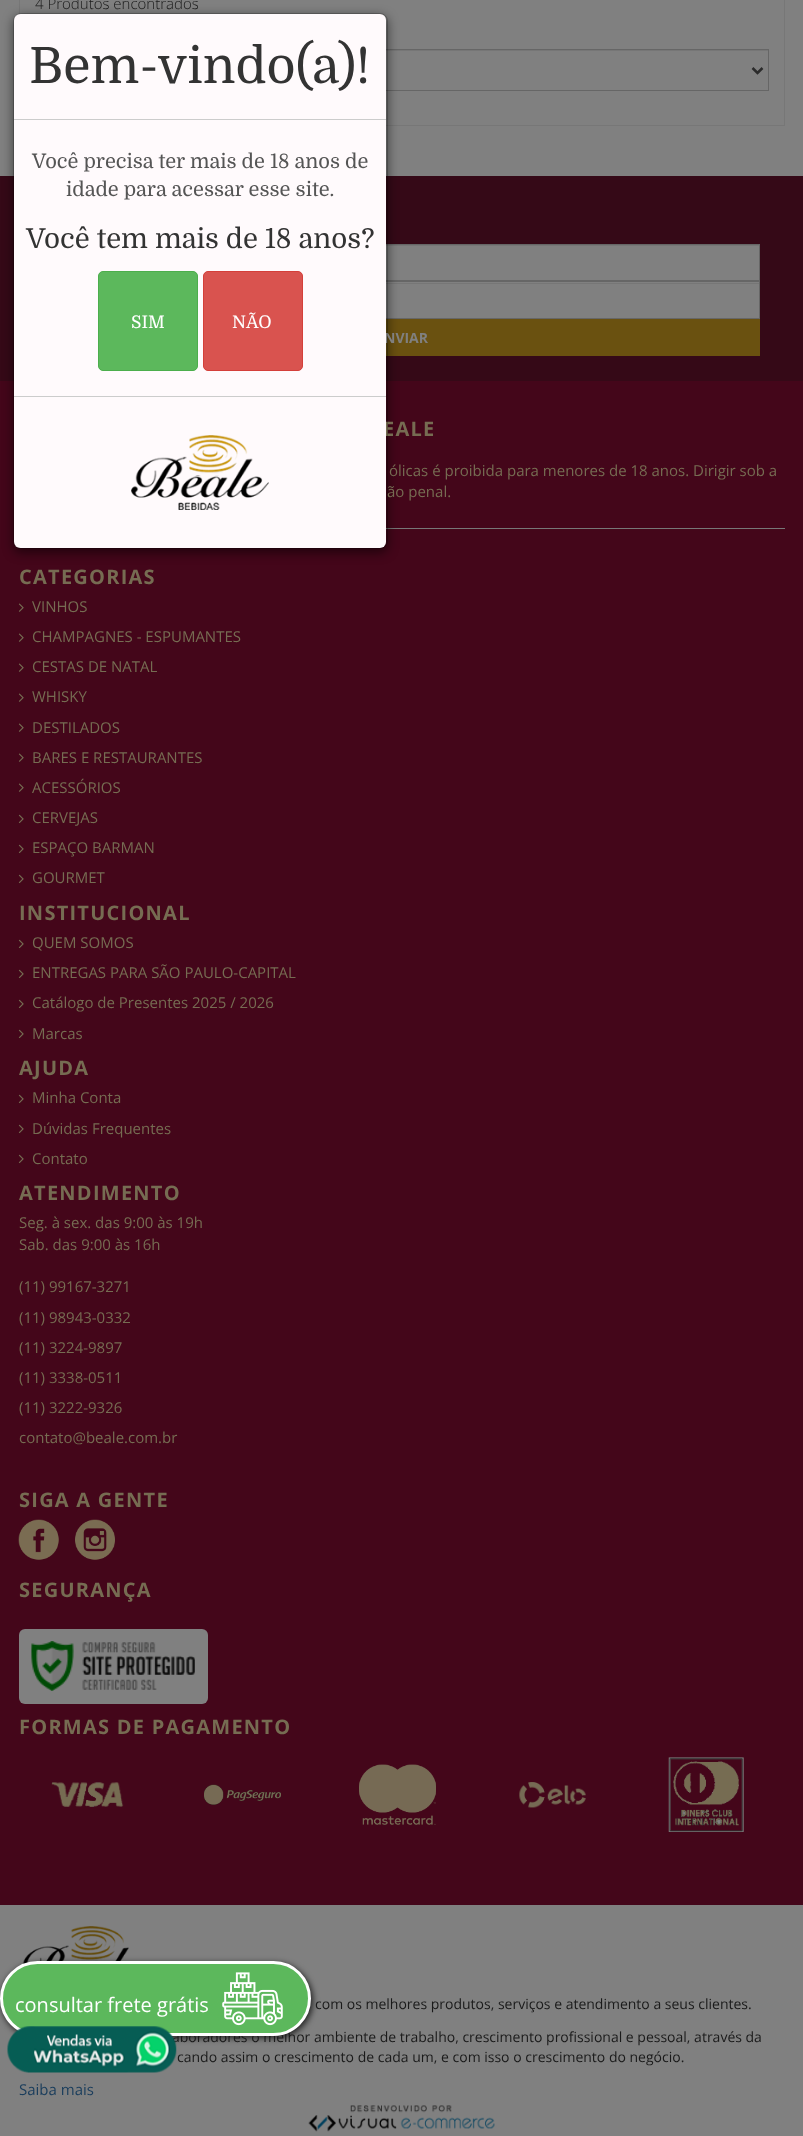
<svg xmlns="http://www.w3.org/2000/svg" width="803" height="2136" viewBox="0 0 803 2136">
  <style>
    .t1 { font: 300 15px Open Sans; fill: #1a1a1a; }
    .t2 { font: bold 14px Open Sans; fill: #808080; }
    .t3 { font: bold 20px Open Sans; letter-spacing: 1.25px; fill: #766c52; }
    .t4 { font: 15px Open Sans; fill: #766c52; }
    .t5 { font: 50px Domine; fill: #333; }
    .t6 { font: 20px Domine; fill: #555; }
    .t7 { font: 27.5px Domine; fill: #333; }
    .t8 { font: 17.5px Domine; fill: #fff; }
    .t9 { font: 14px Open Sans; fill: #1a1a1a; }
    .t10 { font: 20px Open Sans; fill: #fff; }
    .t11 { font: 15px Open Sans; fill: #1a3d5c; }
  </style>
  <rect width="100%" height="100%" fill="#808080"/>
  <rect x="19.5" y="-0.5" width="765" height="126" fill="none" stroke="#777"/>
  <text x="35" y="9" class="t1">4 Produtos encontrados</text>
  <rect x="386" y="50" width="382" height="1" fill="#767676"/>
  <rect x="35.5" y="49.5" width="733" height="41" fill="none" stroke="#666"/>
  <path d="M752.5 68L757.5 73L762.5 68" fill="none" stroke="#2b2b2b" stroke-width="2.5"/>
  <rect x="0" y="176" width="803" height="205" fill="#350917"/>
  <rect x="386" y="246" width="373" height="34" fill="#808080"/>
  <rect x="386" y="245" width="373" height="1" fill="#767676"/>
  <rect x="44.5" y="244.5" width="715" height="36" fill="none" stroke="#666"/>
  <rect x="386" y="282" width="373" height="36" fill="#808080"/>
  <rect x="386" y="283" width="373" height="1" fill="#767676"/>
  <rect x="44.5" y="281.5" width="715" height="37" fill="none" stroke="#666"/>
  <rect x="386" y="319" width="374" height="37" fill="#6a5110"/>
  <rect x="0" y="381" width="803" height="1524" fill="#44061a"/>
  <rect x="386" y="528" width="399" height="1" fill="#777"/>
  <rect x="13" y="16" width="375" height="537" rx="8" fill="#00000080" filter="blur(5.5px)"/>
  <text x="384" y="343" class="t2">NVIAR</text>
  <text x="383" y="436" class="t3">EALE</text>
  <rect x="14" y="14" width="372" height="534" rx="6" fill="#fffafc"/>
  <text x="387" y="497" class="t4">ão penal.</text>
  <rect x="13.5" y="13.5" width="374" height="535" rx="7.5" fill="none" stroke="#00000033"/>
  <text x="29" y="83" class="t5">Bem-vindo(a)!</text>
  <rect x="14" y="119" width="372" height="1" fill="#ccc"/>
  <text x="32" y="168" class="t6">Você precisa ter mais de 18 anos de</text>
  <text x="66" y="196" class="t6">idade para acessar esse site.</text>
  <text x="26" y="248" class="t7">Você tem mais de 18 anos?</text>
  <rect x="98.5" y="271.5" width="99" height="99" rx="4.5" fill="#5cb85c" stroke="#4cae4c"/>
  <text x="131" y="328" class="t8">SIM</text>
  <rect x="203.5" y="271.5" width="99" height="99" rx="4.5" fill="#d9534f" stroke="#d43f3a"/>
  <text x="232" y="328" class="t8">NÃO</text>
  <rect x="14" y="396" width="372" height="1" fill="#ccc"/>
  <image x="131" y="435" width="138" height="75" href="images/1.png"/>
  <text x="389" y="476" class="t4">ólicas é proibida para menores de 18 anos. Dirigir sob a</text>
  <text x="19" y="584" class="t3">CATEGORIAS</text>
  <image x="18" y="603" width="6" height="9" href="images/2.png"/>
  <text x="32" y="612" class="t4">VINHOS</text>
  <image x="18" y="633" width="6" height="9" href="images/2.png"/>
  <text x="32" y="642" class="t4">CHAMPAGNES - ESPUMANTES</text>
  <image x="18" y="663" width="6" height="9" href="images/2.png"/>
  <text x="32" y="672" class="t4">CESTAS DE NATAL</text>
  <image x="18" y="693" width="6" height="9" href="images/2.png"/>
  <text x="32" y="702" class="t4">WHISKY</text>
  <image x="18" y="723" width="6" height="9" href="images/2.png"/>
  <text x="32" y="733" class="t4">DESTILADOS</text>
  <image x="18" y="753" width="6" height="9" href="images/2.png"/>
  <text x="32" y="763" class="t4">BARES E RESTAURANTES</text>
  <image x="18" y="783" width="6" height="9" href="images/2.png"/>
  <text x="32" y="793" class="t4">ACESSÓRIOS</text>
  <image x="18" y="814" width="6" height="10" href="images/3.png"/>
  <text x="32" y="823" class="t4">CERVEJAS</text>
  <image x="18" y="844" width="6" height="10" href="images/3.png"/>
  <text x="32" y="853" class="t4">ESPAÇO BARMAN</text>
  <image x="18" y="874" width="6" height="10" href="images/3.png"/>
  <text x="32" y="883" class="t4">GOURMET</text>
  <text x="19" y="920" class="t3">INSTITUCIONAL</text>
  <image x="18" y="939" width="6" height="10" href="images/3.png"/>
  <text x="32" y="948" class="t4">QUEM SOMOS</text>
  <image x="18" y="969" width="6" height="10" href="images/3.png"/>
  <text x="32" y="978" class="t4">ENTREGAS PARA SÃO PAULO-CAPITAL</text>
  <image x="18" y="999" width="6" height="10" href="images/3.png"/>
  <text x="32" y="1008" class="t4">Catálogo de Presentes 2025 / 2026</text>
  <image x="18" y="1029" width="6" height="10" href="images/3.png"/>
  <text x="32" y="1039" class="t4">Marcas</text>
  <text x="19" y="1075" class="t3">AJUDA</text>
  <image x="18" y="1094" width="6" height="10" href="images/3.png"/>
  <text x="32" y="1103" class="t4">Minha Conta</text>
  <image x="18" y="1124" width="6" height="10" href="images/3.png"/>
  <text x="32" y="1134" class="t4">Dúvidas Frequentes</text>
  <image x="18" y="1154" width="6" height="10" href="images/3.png"/>
  <text x="32" y="1164" class="t4">Contato</text>
  <text x="19" y="1200" class="t3">ATENDIMENTO</text>
  <text x="19" y="1228" class="t4">Seg. à sex. das 9:00 às 19h</text>
  <text x="19" y="1250" class="t4">Sab. das 9:00 às 16h</text>
  <text x="19" y="1292" class="t4">(11) 99167-3271</text>
  <text x="19" y="1323" class="t4">(11) 98943-0332</text>
  <text x="19" y="1353" class="t4">(11) 3224-9897</text>
  <text x="19" y="1383" class="t4">(11) 3338-0511</text>
  <text x="19" y="1413" class="t4">(11) 3222-9326</text>
  <text x="19" y="1443" class="t4">contato@beale.com.br</text>
  <text x="19" y="1507" class="t3">SIGA A GENTE</text>
  <image x="18" y="1519" width="41" height="41" href="images/4.png"/>
  <image x="75" y="1519" width="40" height="41" href="images/5.png"/>
  <text x="19" y="1597" class="t3">SEGURANÇA</text>
  <rect x="19" y="1629" width="189" height="75" rx="6" fill="#808080"/>
  <image x="31" y="1641" width="164" height="50" href="images/6.png"/>
  <text x="19" y="1734" class="t3">FORMAS DE PAGAMENTO</text>
  <image x="51" y="1782" width="73" height="25" href="images/7.png"/>
  <image x="204" y="1784" width="77" height="21" href="images/8.png"/>
  <image x="359" y="1764" width="77" height="61" href="images/9.png"/>
  <image x="519" y="1782" width="67" height="26" href="images/10.png"/>
  <image x="668" y="1757" width="76" height="75" href="images/11.png"/>
  <image x="22" y="1926" width="107" height="39" href="images/13.png"/>
  <rect x="1" y="1963" width="312" height="75" rx="37.5" fill="#000000bf" filter="blur(3px)"/>
  <text x="172" y="2042" class="t9">aboradores o melhor ambiente de trabalho, crescimento profissional e pessoal, através da</text>
  <rect x="1.5" y="1962.5" width="308" height="72" rx="36" fill="#5cb85c" stroke="#fff" stroke-width="3"/>
  <text x="15" y="2012" class="t10">consultar frete grátis</text>
  <image x="222" y="1972" width="61" height="54" href="images/12.png"/>
  <text x="315" y="2009" class="t9">com os melhores produtos, serviços e atendimento a seus clientes.</text>
  <text x="177" y="2062" class="t9">cando assim o crescimento de cada um, e com isso o crescimento do negócio.</text>
  <text x="19" y="2095" class="t11">Saiba mais</text>
  <image x="7" y="2026" width="170" height="47" href="images/14.png"/>
  <image x="308" y="2105" width="187" height="27" href="images/15.png"/>
</svg>
